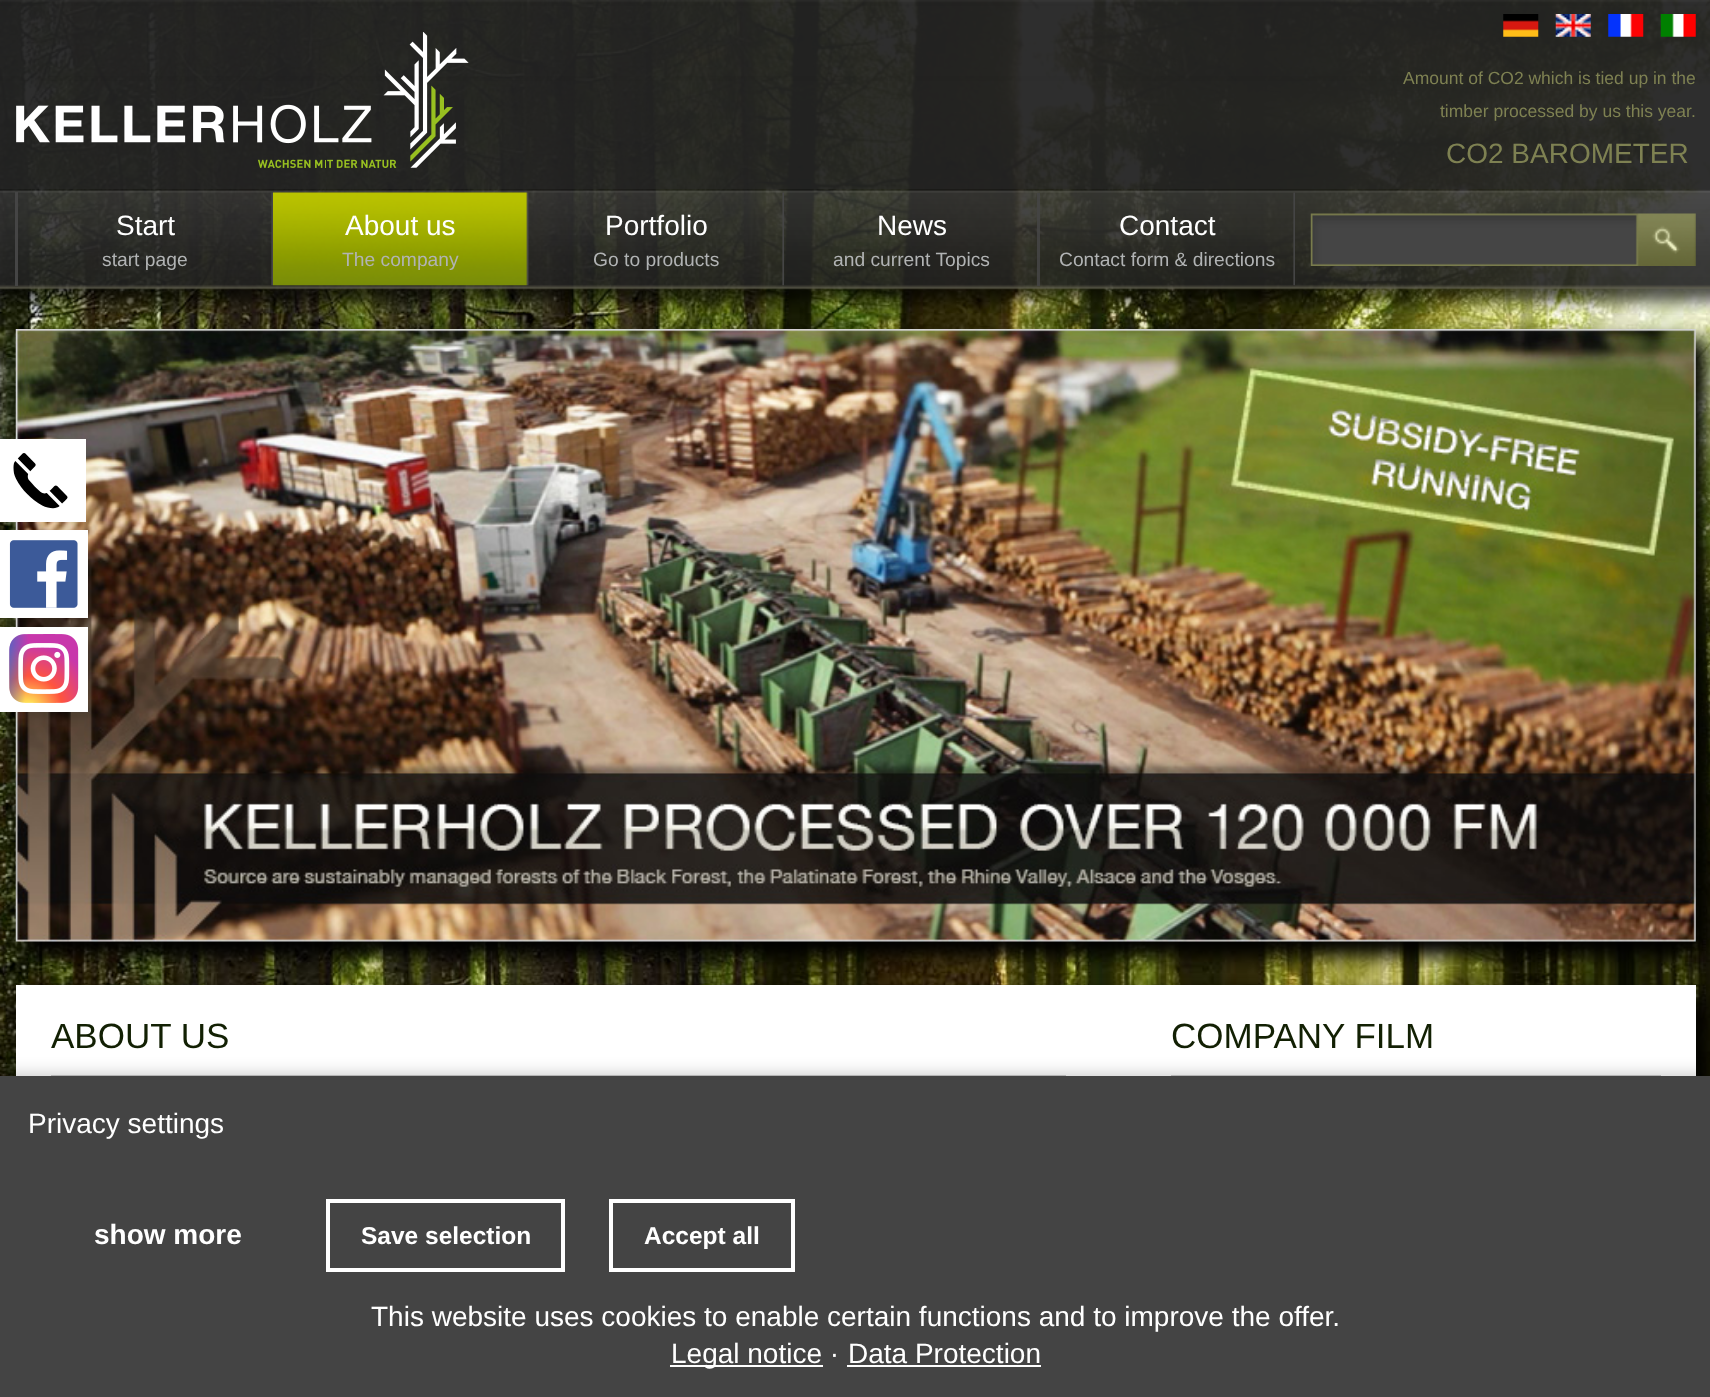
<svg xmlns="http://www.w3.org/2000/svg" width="1710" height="1397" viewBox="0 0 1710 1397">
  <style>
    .t1 { font: 17.5px Liberation Sans; fill: #7e8152; }
    .t2 { font: 28px Liberation Sans; fill: #7e8152; }
    .t3 { font: 28px Liberation Sans; fill: #fff; }
    .t4 { font: 19.25px Liberation Sans; fill: #b1b3b4; }
    .t5 { font: 35px Liberation Sans; fill: #122003; }
    .t6 { font: bold 28px Liberation Sans; fill: #fff; }
    .t7 { font: bold 24.5px Liberation Sans; fill: #fff; }
  </style>
  <rect width="100%" height="100%" fill="#fff"/>
  <image x="0" y="0" width="1710" height="1076" href="images/1.png"/>
  <image x="0" y="189" width="1710" height="126" href="images/11.png"/>
  <rect x="23" y="340" width="1683" height="616" fill="#000" filter="blur(9px)"/>
  <image x="15" y="329" width="1681" height="613" href="images/17.png"/>
  <rect x="0" y="439" width="86" height="83" fill="#fff"/>
  <image x="13" y="453" width="55" height="56" href="images/2.png"/>
  <rect x="0" y="530" width="88" height="88" fill="#fff"/>
  <image x="9" y="540" width="69" height="68" href="images/3.png"/>
  <rect x="0" y="627" width="88" height="85" fill="#fff"/>
  <image x="9" y="634" width="70" height="69" href="images/4.png"/>
  <image x="0" y="0" width="1710" height="189" href="images/5.png"/>
  <image x="16" y="32" width="453" height="136" href="images/6.png"/>
  <image x="1503" y="14" width="36" height="23" href="images/7.png"/>
  <image x="1555" y="14" width="36" height="23" href="images/8.png"/>
  <image x="1608" y="14" width="36" height="23" href="images/9.png"/>
  <image x="1660" y="14" width="36" height="23" href="images/10.png"/>
  <text x="1403" y="84" class="t1">Amount of CO2 which is tied up in the</text>
  <text x="1440" y="117" class="t1">timber processed by us this year.</text>
  <text x="1446" y="163" class="t2">CO2 BAROMETER</text>
  <rect x="15" y="192" width="3" height="94" fill="#454545"/>
  <image x="271" y="192" width="2" height="94" href="images/12.png"/>
  <text x="116" y="235" class="t3">Start</text>
  <text x="102" y="266" class="t4">start page</text>
  <image x="273" y="192" width="256" height="94" href="images/13.png"/>
  <text x="345" y="235" class="t3">About us</text>
  <text x="342" y="266" class="t4">The company</text>
  <image x="782" y="192" width="2" height="94" href="images/14.png"/>
  <text x="605" y="235" class="t3">Portfolio</text>
  <text x="593" y="266" class="t4">Go to products</text>
  <rect x="1037" y="193" width="3" height="93" fill="#454545de"/>
  <text x="877" y="235" class="t3">News</text>
  <text x="833" y="266" class="t4">and current Topics</text>
  <image x="1293" y="192" width="2" height="94" href="images/15.png"/>
  <text x="1119" y="235" class="t3">Contact</text>
  <text x="1059" y="266" class="t4">Contact form &amp; directions</text>
  <image x="1310" y="213" width="386" height="53" href="images/16.png"/>
  <rect x="23" y="996" width="1683" height="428" fill="#000" filter="blur(9px)"/>
  <rect x="16" y="985" width="1680" height="91" fill="#fff"/>
  <rect x="51" y="1075" width="1015" height="1" fill="#cdcdcd"/>
  <text x="51" y="1048" class="t5">ABOUT US</text>
  <rect x="1171" y="1075" width="490" height="1" fill="#cdcdcd"/>
  <text x="1171" y="1048" class="t5">COMPANY FILM</text>
  <rect x="0" y="1076" width="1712" height="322" fill="#00000040" filter="blur(9px)"/>
  <rect x="0" y="1076" width="1710" height="321" fill="#444"/>
  <text x="28" y="1133" class="t3">Privacy settings</text>
  <text x="94" y="1244" class="t6">show more</text>
  <rect x="328" y="1201" width="235" height="69" fill="none" stroke="#fff" stroke-width="4"/>
  <text x="361" y="1244" class="t7">Save selection</text>
  <rect x="611" y="1201" width="182" height="69" fill="none" stroke="#fff" stroke-width="4"/>
  <text x="644" y="1244" class="t7">Accept all</text>
  <text x="371" y="1326" class="t3">This website uses cookies to enable certain functions and to improve the offer.</text>
  <rect x="670" y="1365" width="153" height="2" fill="#fff"/>
  <text x="671" y="1363" class="t3">Legal notice ·</text>
  <text x="848" y="1363" class="t3">Data Protection</text>
  <rect x="847" y="1365" width="194" height="2" fill="#fff"/>
</svg>
